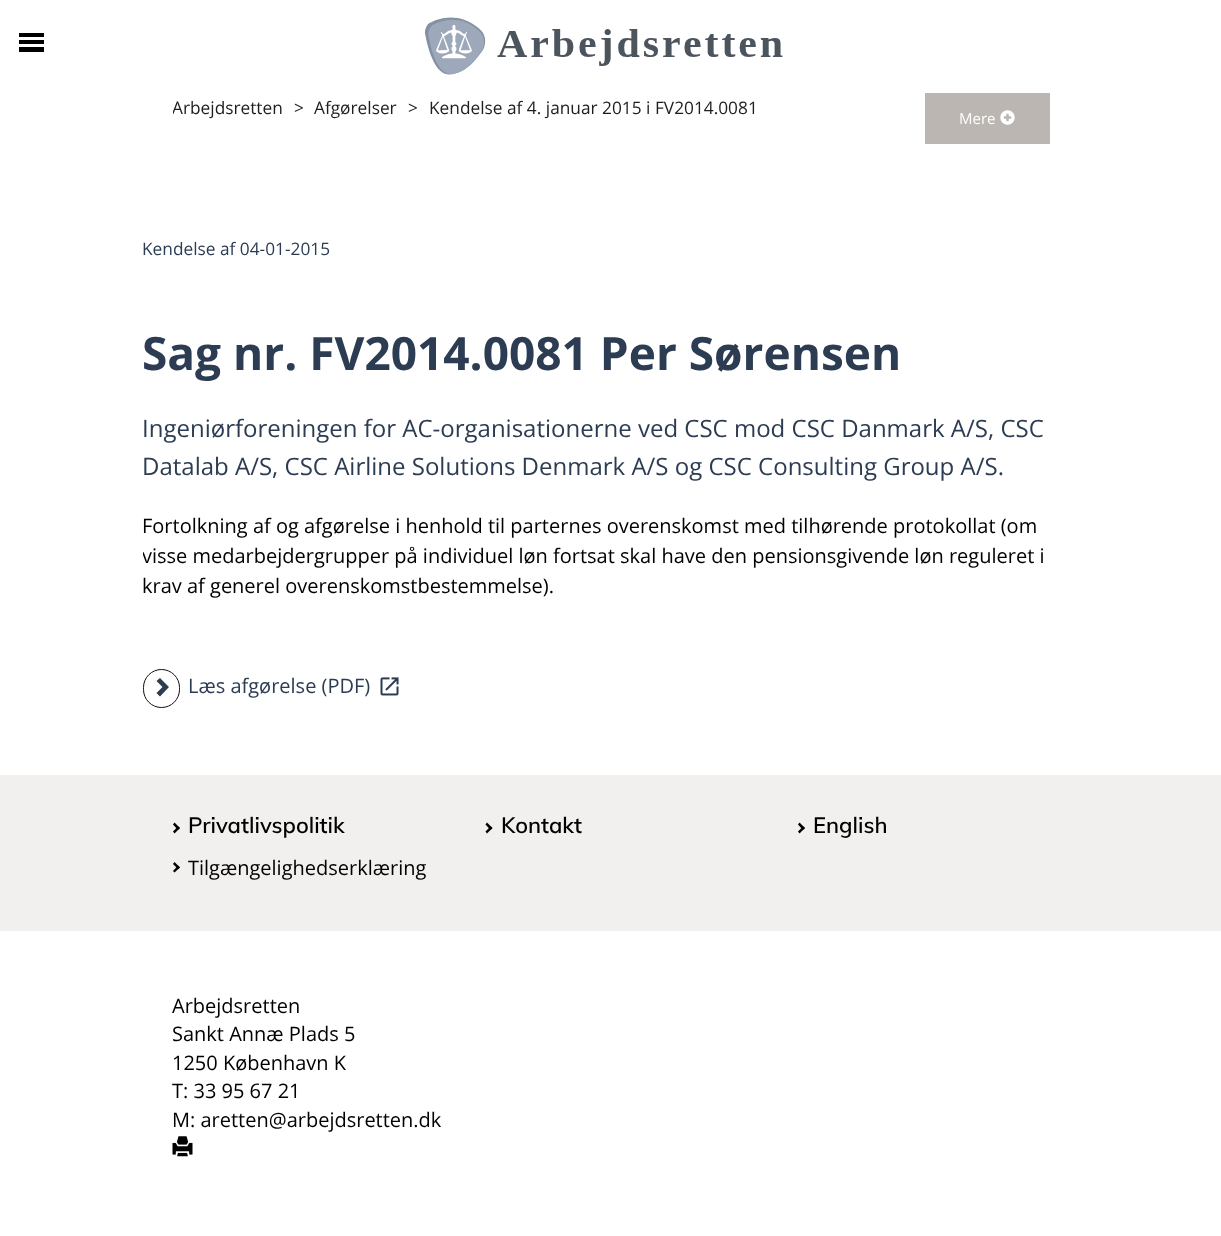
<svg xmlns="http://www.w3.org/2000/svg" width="1221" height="1236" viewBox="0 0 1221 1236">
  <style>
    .t1 { font: 17.3px Open Sans; fill: #1e1e1e; }
    .t2 { font: 15px Open Sans; fill: #fff; }
    .t3 { font: 17.3px Open Sans; fill: #2c3c52; }
    .t4 { font: bold 46px Open Sans; fill: #2c3c52; }
    .t5 { font: 24px Open Sans; fill: #2c3c52; }
    .t6 { font: 20px Open Sans; fill: #000; }
    .t7 { font: 20px Open Sans; fill: #2c3c52; }
    .t8 { font: 600 22px Muli; fill: #000; }
  </style>
  <defs>
    <clipPath id="clip1"><rect x="173" y="93" width="601" height="51"/></clipPath>
    <clipPath id="clip2"><rect x="143" y="204" width="937" height="571"/></clipPath>
  </defs>
  <rect width="100%" height="100%" fill="#fff"/>
  <rect x="19" y="33" width="25" height="4" fill="#000"/>
  <rect x="19" y="40" width="25" height="4" fill="#000"/>
  <rect x="19" y="47" width="25" height="5" fill="#000"/>
  <image x="424" y="17" width="359" height="58" href="images/1.png"/>
  <g clip-path="url(#clip1)">
    <text x="172" y="114" class="t1">Arbejdsretten</text>
  </g>
  <text x="294" y="114" class="t1">&gt;</text>
  <text x="314" y="114" class="t1">Afgørelser</text>
  <text x="408" y="114" class="t1">&gt;</text>
  <text x="429" y="114" class="t1">Kendelse af 4. januar 2015 i FV2014.0081</text>
  <rect x="925" y="93" width="125" height="51" fill="#bbb6b1"/>
  <text x="959" y="124" class="t2">Mere</text>
  <image x="1000" y="110" width="15" height="15" href="images/2.png"/>
  <text x="142" y="255" class="t3">Kendelse af 04-01-2015</text>
  <text x="142" y="370" class="t4">Sag nr. FV2014.0081 Per Sørensen</text>
  <text x="142" y="437" class="t5">Ingeniørforeningen for AC-organisationerne ved CSC mod CSC Danmark A/S, CSC</text>
  <text x="142" y="475" class="t5">Datalab A/S, CSC Airline Solutions Denmark A/S og CSC Consulting Group A/S.</text>
  <text x="142" y="533" class="t6">Fortolkning af og afgørelse i henhold til parternes overenskomst med tilhørende protokollat (om</text>
  <g clip-path="url(#clip2)">
    <text x="142" y="563" class="t6">visse medarbejdergrupper på individuel løn fortsat skal have den pensionsgivende løn reguleret i</text>
  </g>
  <text x="142" y="593" class="t6">krav af generel overenskomstbestemmelse).</text>
  <rect x="143.5" y="669.5" width="36" height="38" rx="18" fill="none" stroke="#111"/>
  <path d="M169 687L160 696.5L156.5 693L162.5 687L156.5 681L160 678Z" fill="#2c3c52"/>
  <text x="188" y="693" class="t7">Læs afgørelse (PDF)</text>
  <image x="380" y="677" width="19" height="19" href="images/3.png"/>
  <rect x="0" y="775" width="1221" height="156" fill="#f1f0ef"/>
  <path d="M174.5 822.5L180 828L178 830L173 824.5Z" fill="#000"/>
  <path d="M178 826.5L180 828L174.5 833.5L173 831.5Z" fill="#000"/>
  <text x="188" y="833" class="t8">Privatlivspolitik</text>
  <path d="M174.5 862L180 867.5L178 869L173 864Z" fill="#000"/>
  <path d="M178 865.5L180 867.5L174.5 872.5L173 871Z" fill="#000"/>
  <text x="188" y="875" class="t6">Tilgængelighedserklæring</text>
  <path d="M487 822.5L492.5 828L490.5 830L485.5 824.5Z" fill="#000"/>
  <path d="M490.5 826.5L492.5 828L487 833.5L485.5 831.5Z" fill="#000"/>
  <text x="501" y="833" class="t8">Kontakt</text>
  <path d="M799.5 822.5L805 828L803 830L798 824.5Z" fill="#000"/>
  <path d="M803 826.5L805 828L799.5 833.5L798 831.5Z" fill="#000"/>
  <text x="813" y="833" class="t8">English</text>
  <text x="172" y="1013" class="t6">Arbejdsretten</text>
  <text x="172" y="1041" class="t6">Sankt Annæ Plads 5</text>
  <text x="172" y="1070" class="t6">1250 København K</text>
  <text x="172" y="1098" class="t6">T: 33 95 67 21</text>
  <text x="172" y="1127" class="t6">M: aretten@arbejdsretten.dk</text>
  <image x="172" y="1136" width="21" height="21" href="images/4.png"/>
</svg>
